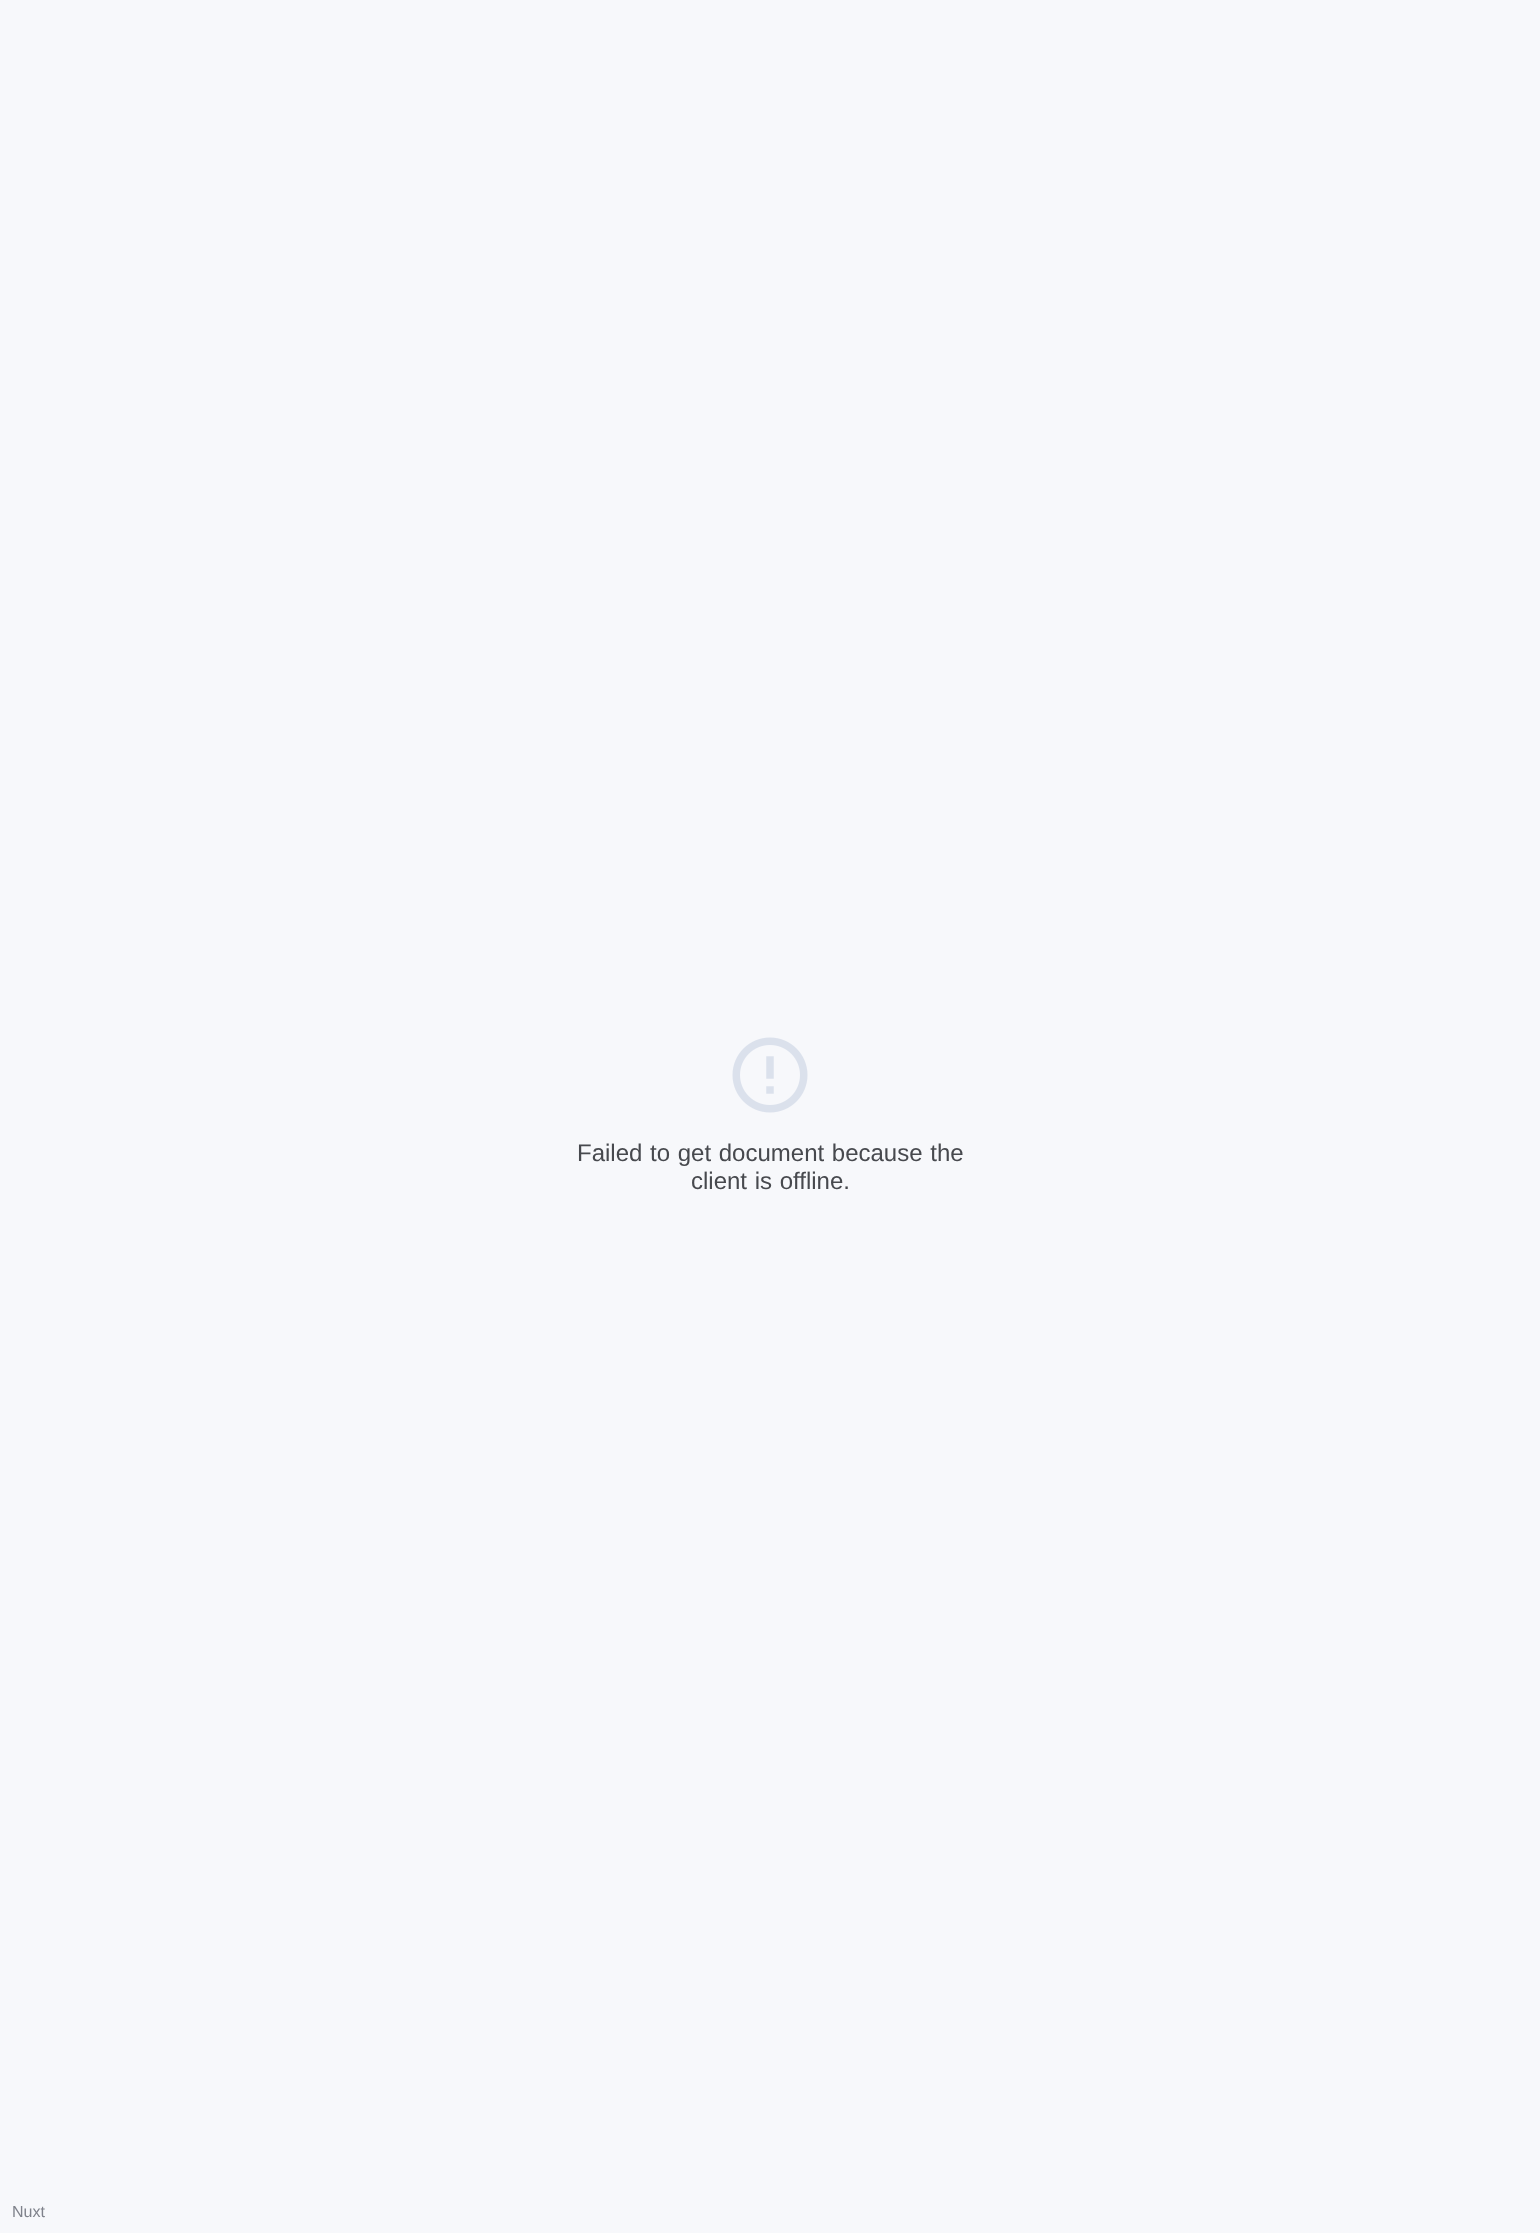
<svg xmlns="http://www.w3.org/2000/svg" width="1540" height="2233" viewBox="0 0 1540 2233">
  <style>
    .t1 { font: 24px Liberation Sans; fill: #47494e; }
    .t2 { font: 16px Liberation Sans; fill: #7f828b; }
  </style>
  <rect width="100%" height="100%" fill="#f7f8fb"/>
  <image x="732" y="1037" width="76" height="76" href="images/1.png"/>
  <text x="577" y="1161" word-spacing="1" class="t1">Failed to get document because the</text>
  <text x="691" y="1189" word-spacing="1" class="t1">client is offline.</text>
  <text x="12" y="2217" class="t2">Nuxt</text>
</svg>
